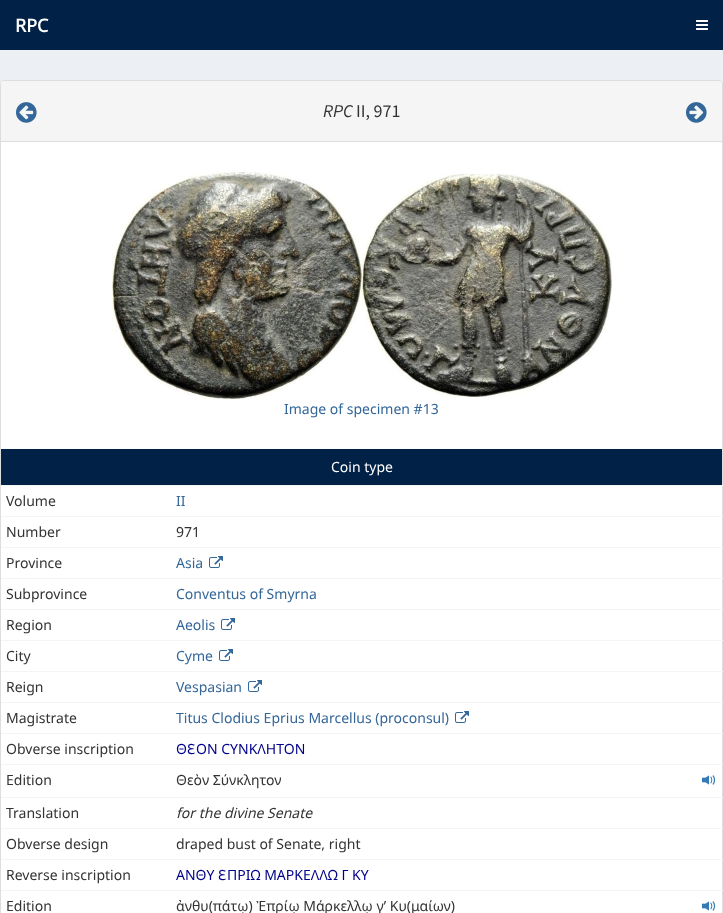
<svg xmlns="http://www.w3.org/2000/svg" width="723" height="913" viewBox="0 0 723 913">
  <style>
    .t1 { font: bold 18px Noto Sans; fill: #fff; }
    .t2 { font: italic 18px Source Sans Pro; fill: #333; }
    .t3 { font: 18px Source Sans Pro; fill: #333; }
    .t4 { font: 14px Noto Sans; fill: #369; }
    .t5 { font: 14px Noto Sans; fill: #fff; }
    .t6 { font: 14px Noto Sans; fill: #333; }
    .t7 { font: 14px Noto Sans; fill: #00008b; }
    .t8 { font: 14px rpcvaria; fill: #00008b; }
    .t9 { font: italic 14px Noto Sans; fill: #333; }
  </style>
  <rect width="100%" height="100%" fill="#ecf0f5"/>
  <rect x="0" y="0" width="723" height="50" fill="#012147"/>
  <text x="15" y="32" class="t1">RPC</text>
  <image x="696" y="20" width="12" height="10" href="images/1.png"/>
  <rect x="0.5" y="80.5" width="722" height="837" rx="3.5" fill="#fff" stroke="#ddd"/>
  <path d="M4 81H719C720.5 81 722 82.5 722 84V142H1V84C1 82.5 2.5 81 4 81Z" fill="#f5f5f5"/>
  <rect x="1" y="141" width="721" height="1" fill="#ddd"/>
  <image x="16" y="102" width="21" height="21" href="images/2.png"/>
  <text x="323" y="117" class="t2">RPC</text>
  <text x="356" y="117" class="t3">II, 971</text>
  <image x="686" y="102" width="21" height="21" href="images/3.png"/>
  <image x="112" y="172" width="250" height="227" href="images/4.png"/>
  <image x="362" y="174" width="250" height="223" href="images/5.png"/>
  <text x="284" y="414" class="t4">Image of specimen #13</text>
  <rect x="1" y="449" width="721" height="36" fill="#012147"/>
  <text x="331" y="472" class="t5">Coin type</text>
  <text x="6" y="506" class="t6">Volume</text>
  <rect x="1" y="485" width="722" height="1" fill="#f4f4f4"/>
  <text x="176" y="506" class="t4">II</text>
  <text x="6" y="537" class="t6">Number</text>
  <rect x="1" y="516" width="722" height="1" fill="#f4f4f4"/>
  <text x="176" y="537" class="t6">971</text>
  <text x="6" y="568" class="t6">Province</text>
  <rect x="1" y="547" width="722" height="1" fill="#f4f4f4"/>
  <text x="176" y="568" class="t4">Asia</text>
  <image x="209" y="556" width="14" height="12" href="images/6.png"/>
  <text x="6" y="599" class="t6">Subprovince</text>
  <rect x="1" y="578" width="722" height="1" fill="#f4f4f4"/>
  <text x="176" y="599" class="t4">Conventus of Smyrna</text>
  <text x="6" y="630" class="t6">Region</text>
  <rect x="1" y="609" width="722" height="1" fill="#f4f4f4"/>
  <text x="176" y="630" class="t4">Aeolis</text>
  <image x="221" y="618" width="14" height="12" href="images/6.png"/>
  <text x="6" y="661" class="t6">City</text>
  <rect x="1" y="640" width="722" height="1" fill="#f4f4f4"/>
  <text x="176" y="661" class="t4">Cyme</text>
  <image x="219" y="649" width="14" height="12" href="images/6.png"/>
  <text x="6" y="692" class="t6">Reign</text>
  <rect x="1" y="671" width="722" height="1" fill="#f4f4f4"/>
  <text x="176" y="692" class="t4">Vespasian</text>
  <image x="248" y="680" width="14" height="12" href="images/6.png"/>
  <text x="6" y="723" class="t6">Magistrate</text>
  <rect x="1" y="702" width="722" height="1" fill="#f4f4f4"/>
  <text x="176" y="723" class="t4">Titus Clodius Eprius Marcellus (proconsul)</text>
  <image x="455" y="711" width="14" height="12" href="images/6.png"/>
  <text x="6" y="754" class="t6">Obverse inscription</text>
  <rect x="1" y="733" width="722" height="1" fill="#f4f4f4"/>
  <text x="176" y="754" class="t7">Θ</text>
  <text x="187" y="754" class="t8">Ε</text>
  <text x="196" y="754" class="t7">ΟΝ ϹΥΝΚΛΗΤΟΝ</text>
  <text x="6" y="785" class="t6">Edition</text>
  <rect x="1" y="764" width="722" height="1" fill="#f4f4f4"/>
  <text x="176" y="785" class="t6">Θεὸν Σύνκλητον</text>
  <image x="702" y="775" width="14" height="10" href="images/7.png"/>
  <text x="6" y="818" class="t6">Translation</text>
  <rect x="1" y="797" width="722" height="1" fill="#f4f4f4"/>
  <text x="176" y="818" class="t9">for the divine Senate</text>
  <text x="6" y="849" class="t6">Obverse design</text>
  <rect x="1" y="828" width="722" height="1" fill="#f4f4f4"/>
  <text x="176" y="849" class="t6">draped bust of Senate, right</text>
  <text x="6" y="880" class="t6">Reverse inscription</text>
  <rect x="1" y="859" width="722" height="1" fill="#f4f4f4"/>
  <text x="176" y="880" class="t7">ΑΝΘΥ</text>
  <text x="218" y="880" class="t8">Ε</text>
  <text x="227" y="880" class="t7">ΠΡΙΩ ΜΑΡΚΕΛΛΩ Γ ΚΥ</text>
  <text x="6" y="911" class="t6">Edition</text>
  <rect x="1" y="890" width="722" height="1" fill="#f4f4f4"/>
  <text x="176" y="911" class="t6">ἀνθυ(πάτῳ) Ἐπρίῳ Μάρκελλῳ γʹ Κυ(μαίων)</text>
  <image x="702" y="901" width="14" height="10" href="images/7.png"/>
</svg>
